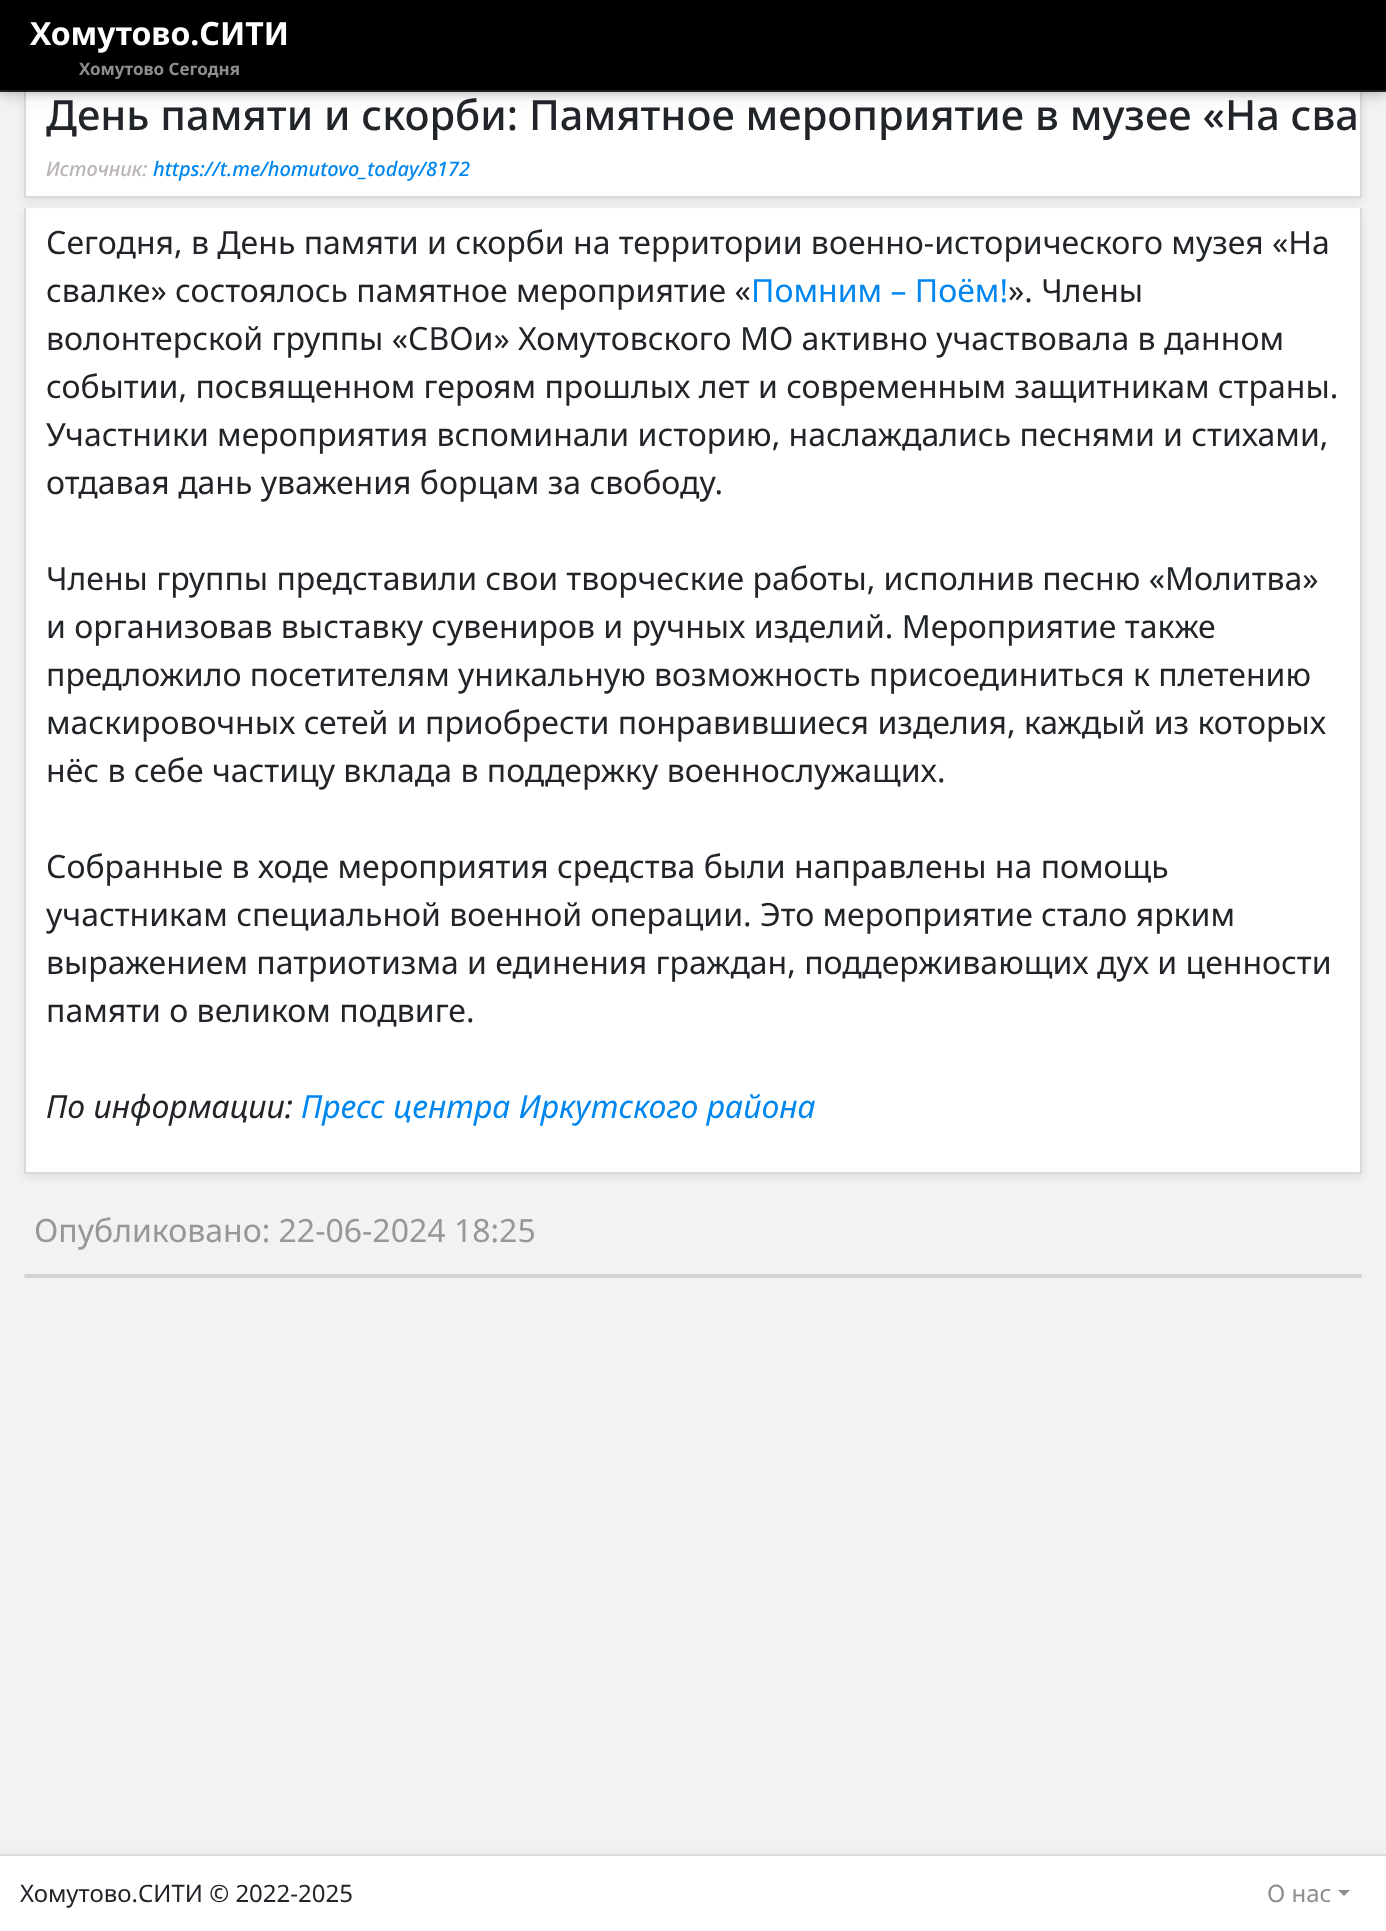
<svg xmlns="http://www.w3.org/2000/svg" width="1386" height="1931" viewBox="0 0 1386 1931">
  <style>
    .t1 { font: bold 32px Noto Sans; fill: #fff; }
    .t2 { font: bold 17px Noto Sans; fill: #8e8e8e; }
    .t3 { font: 500 41.6px Noto Sans; fill: #212529; }
    .t4 { font: italic 500 20px Noto Sans; fill: #bab4b4; }
    .t5 { font: italic 500 20px Noto Sans; fill: #0087ef; }
    .t6 { font: 32px Noto Sans; fill: #212529; }
    .t7 { font: 32px Noto Sans; fill: #0087ef; }
    .t8 { font: italic 32px Noto Sans; fill: #212529; }
    .t9 { font: italic 32px Noto Sans; fill: #0087ef; }
    .t10 { font: 32px Noto Sans; fill: #979797; }
    .t11 { font: 24px Noto Sans; fill: #212529; }
    .t12 { font: 24px Noto Sans; fill: #8e8e8e; }
  </style>
  <rect width="100%" height="100%" fill="#f2f2f2"/>
  <rect x="24" y="212" width="1338" height="966" fill="#00000012" filter="blur(4px)"/>
  <rect x="26" y="208" width="1334" height="964" fill="#fff"/>
  <rect x="1360" y="208" width="2" height="966" fill="#dadada"/>
  <rect x="24" y="1172" width="1338" height="2" fill="#dadada"/>
  <rect x="24" y="208" width="2" height="966" fill="#dadada"/>
  <rect x="24" y="94" width="1338" height="108" fill="#00000012" filter="blur(4px)"/>
  <rect x="26" y="90" width="1334" height="106" fill="#fff"/>
  <rect x="1360" y="90" width="2" height="108" fill="#dadada"/>
  <rect x="24" y="196" width="1338" height="2" fill="#dadada"/>
  <rect x="24" y="90" width="2" height="108" fill="#dadada"/>
  <rect x="0" y="4" width="1386" height="90" fill="#0000001f" filter="blur(10px)"/>
  <rect x="0" y="4" width="1386" height="90" fill="#00000029" filter="blur(5px)"/>
  <rect x="0" y="0" width="1386" height="90" fill="#000"/>
  <text x="30" y="45" class="t1">Хомутово.СИТИ</text>
  <text x="79" y="75" class="t2">Хомутово Сегодня</text>
  <rect x="0" y="90" width="1386" height="2" fill="#000000d9"/>
  <text x="46" y="130" class="t3">День памяти и скорби: Памятное мероприятие в музее «На сва</text>
  <text x="46" y="176" class="t4">Источник:</text>
  <text x="153" y="176" class="t5">https://t.me/homutovo_today/8172</text>
  <text x="46" y="254" class="t6">Сегодня, в День памяти и скорби на территории военно-исторического музея «На</text>
  <text x="46" y="302" class="t6">свалке» состоялось памятное мероприятие «</text>
  <text x="751" y="302" class="t7">Помним – Поём!</text>
  <text x="1008" y="302" class="t6">». Члены</text>
  <text x="46" y="350" class="t6">волонтерской группы «СВОи» Хомутовского МО активно участвовала в данном</text>
  <text x="46" y="398" class="t6">событии, посвященном героям прошлых лет и современным защитникам страны.</text>
  <text x="46" y="446" class="t6">Участники мероприятия вспоминали историю, наслаждались песнями и стихами,</text>
  <text x="46" y="494" class="t6">отдавая дань уважения борцам за свободу.</text>
  <text x="46" y="590" class="t6">Члены группы представили свои творческие работы, исполнив песню «Молитва»</text>
  <text x="46" y="638" class="t6">и организовав выставку сувениров и ручных изделий. Мероприятие также</text>
  <text x="46" y="686" class="t6">предложило посетителям уникальную возможность присоединиться к плетению</text>
  <text x="46" y="734" class="t6">маскировочных сетей и приобрести понравившиеся изделия, каждый из которых</text>
  <text x="46" y="782" class="t6">нёс в себе частицу вклада в поддержку военнослужащих.</text>
  <text x="46" y="878" class="t6">Собранные в ходе мероприятия средства были направлены на помощь</text>
  <text x="46" y="926" class="t6">участникам специальной военной операции. Это мероприятие стало ярким</text>
  <text x="46" y="974" class="t6">выражением патриотизма и единения граждан, поддерживающих дух и ценности</text>
  <text x="46" y="1022" class="t6">памяти о великом подвиге.</text>
  <text x="46" y="1118" class="t8">По информации:</text>
  <text x="301" y="1118" class="t9">Пресс центра Иркутского района</text>
  <text x="34" y="1242" class="t10">Опубликовано: 22-06-2024 18:25</text>
  <rect x="24" y="1274" width="1338" height="4" rx="2" fill="#d2d2d2"/>
  <rect x="0" y="1870" width="1386" height="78" fill="#00000026" filter="blur(16px)"/>
  <rect x="0" y="1856" width="1386" height="75" fill="#fff"/>
  <rect x="0" y="1854" width="1386" height="2" fill="#dadada"/>
  <text x="20" y="1902" class="t11">Хомутово.СИТИ © 2022-2025</text>
  <text x="1267" y="1902" class="t12">О нас</text>
  <path d="M1338 1890H1350L1344 1896Z" fill="#8e8e8e"/>
</svg>
